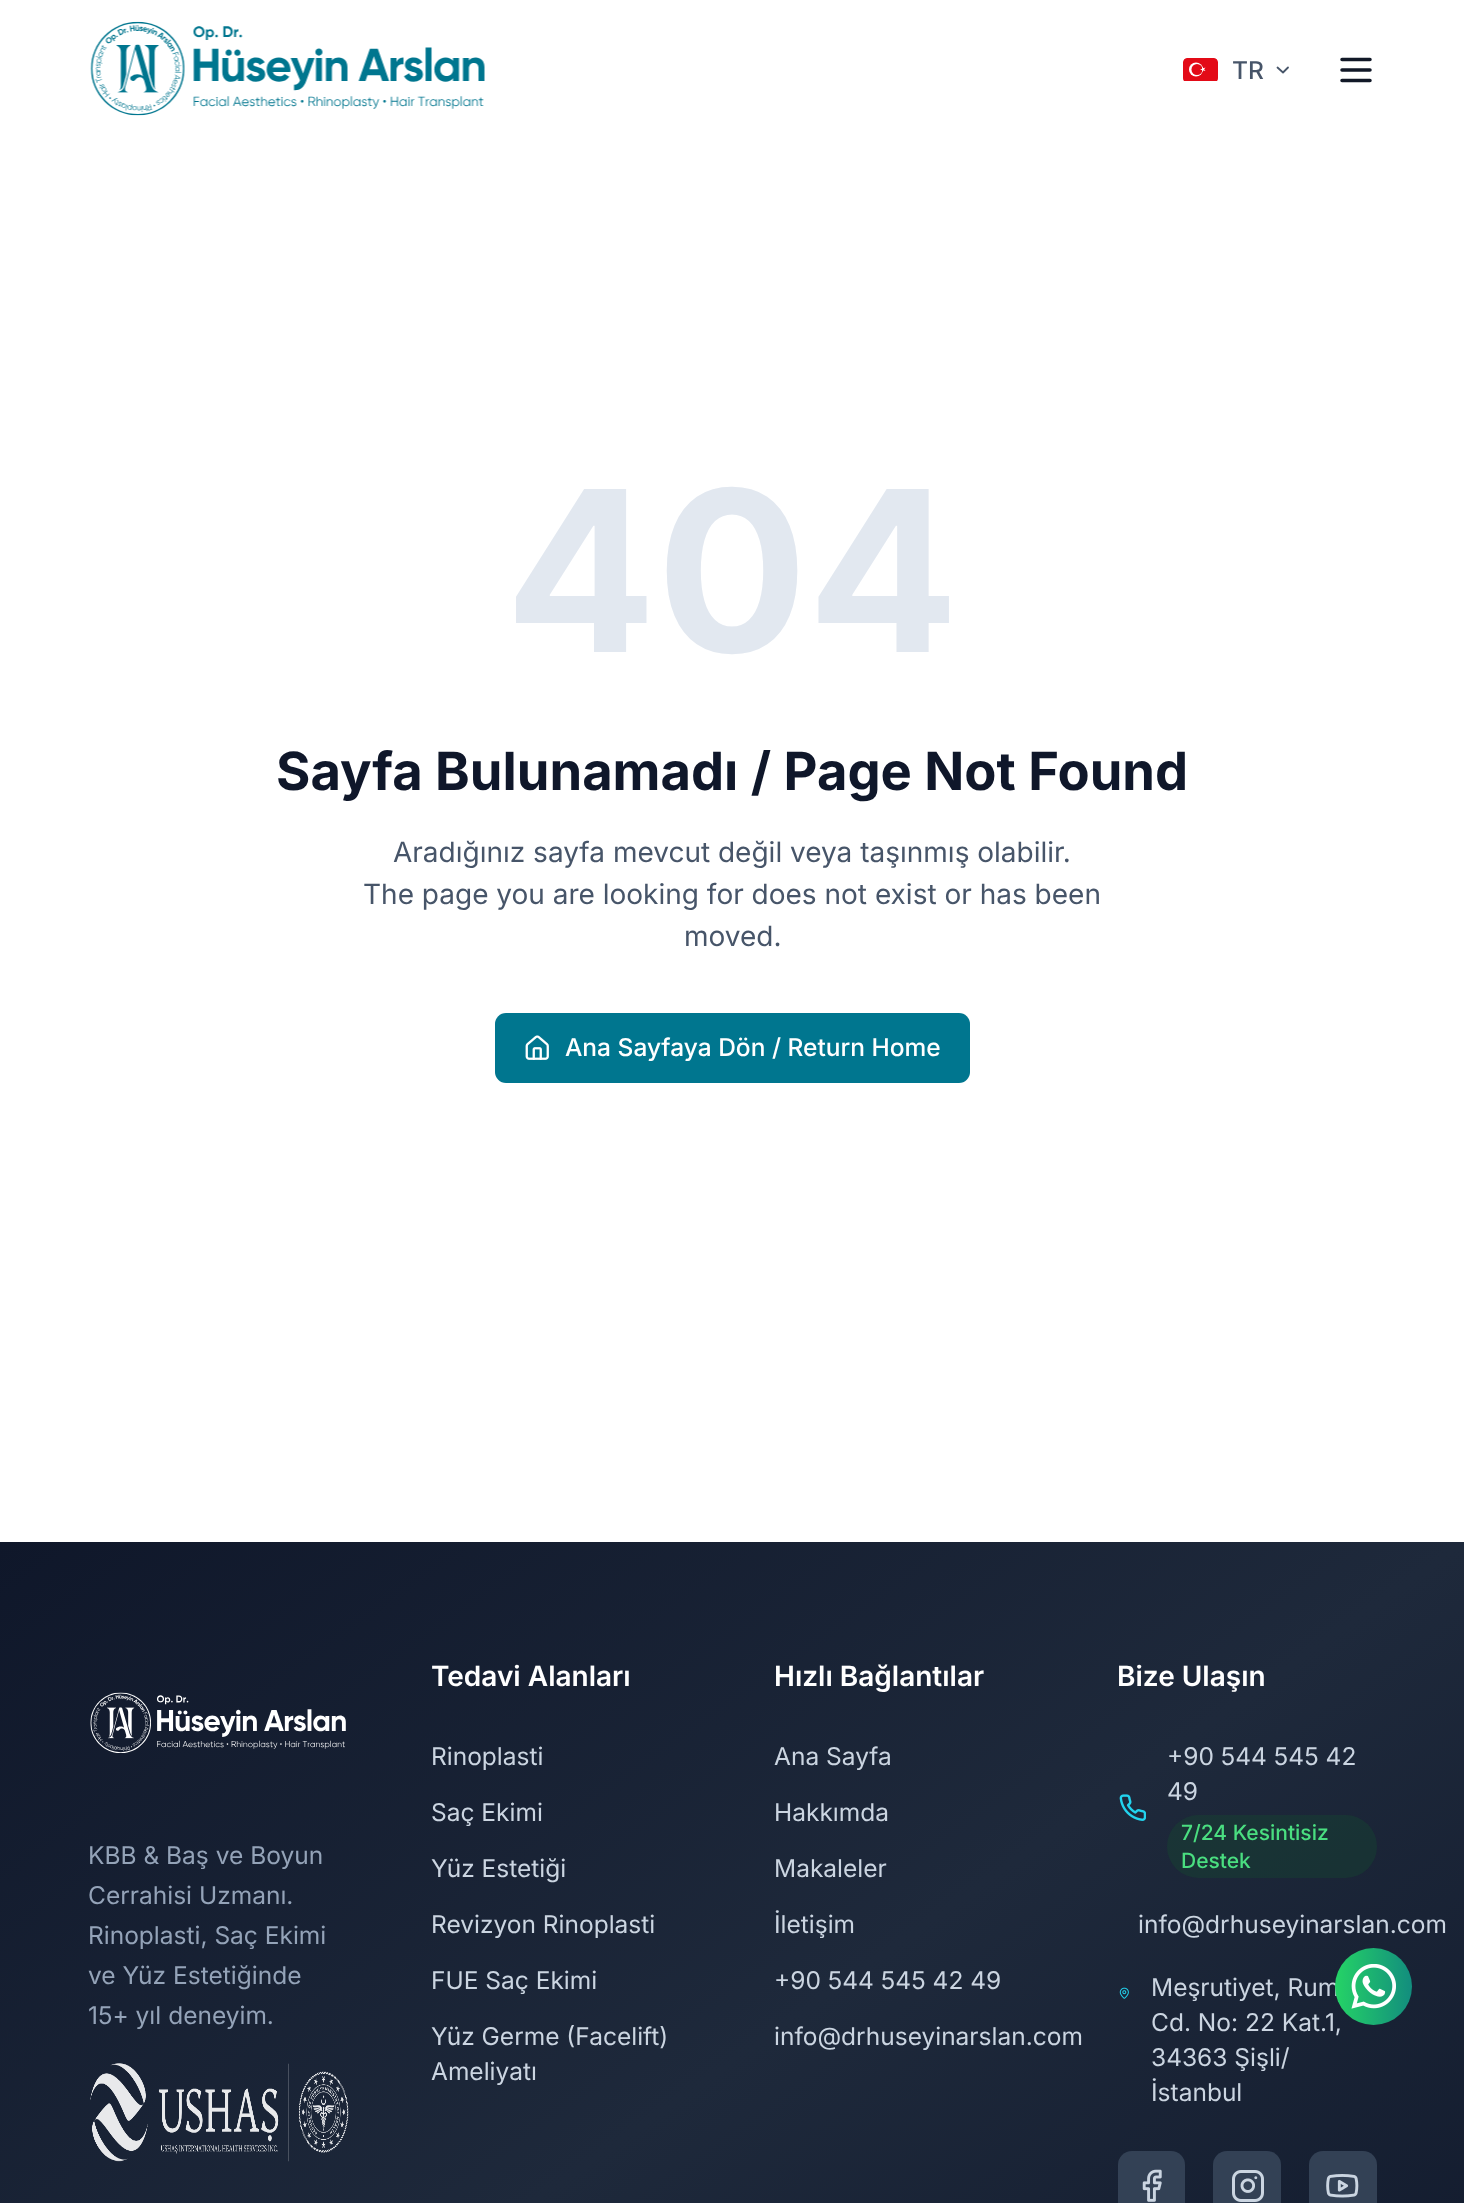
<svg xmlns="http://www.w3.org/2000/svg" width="1464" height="2203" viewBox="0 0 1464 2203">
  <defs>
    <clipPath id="clip1"><rect x="1183" y="58" width="35" height="24" rx="4"/></clipPath>
    <linearGradient id="g1" gradientUnits="userSpaceOnUse" x1="243" y1="1370" x2="1222" y2="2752"><stop offset="0" stop-color="#0f172a"/><stop offset="0.5" stop-color="#1e293b"/><stop offset="1" stop-color="#0f172a"/></linearGradient>
    <linearGradient id="g2" gradientUnits="userSpaceOnUse" x1="1335" y1="1986" x2="1413" y2="1986"><stop offset="0" stop-color="#25d366"/><stop offset="1" stop-color="#128c7e"/></linearGradient>
  </defs>
  <rect width="100%" height="100%" fill="#fff"/>
  <image x="90" y="21" width="395" height="95" href="img/1.png"/>
  <g clip-path="url(#clip1)">
    <path d="M1187 58H1214C1216 58 1218 60 1218 62V81H1183V62C1183 60 1185 58 1187 58Z" fill="#e30a17"/>
  </g>
  <circle cx="1196" cy="69.5" r="7" fill="#fff"/>
  <circle cx="1197" cy="69.5" r="5.5" fill="#e30a17"/>
  <path d="M1200 69.5L1205.5 71L1202 66.5V72L1205.5 67.5Z" fill="#fff"/>
  <path d="M1277.5 67.5L1283 72.5L1288 67.5" fill="none" stroke="#475569" stroke-width="1.8" stroke-linecap="round" stroke-linejoin="round"/>
  <path d="M1342 70H1370M1342 59.5H1370M1342 80.5H1370" fill="none" stroke="#111827" stroke-width="3.5" stroke-linecap="round" stroke-linejoin="round"/>
  <rect x="495" y="1013" width="475" height="70" rx="11" fill="#00768f"/>
  <image x="525" y="1035" width="24" height="25" href="img/2.png"/>
  <path d="M0 1542h1464v661H0z" fill="url(#g1)"/>
  <image x="90" y="1692" width="256" height="61" href="img/3.png"/>
  <image x="90" y="2063" width="259" height="99" href="img/4.png"/>
  <image x="1119" y="1794" width="27" height="27" href="img/5.png"/>
  <rect x="1167" y="1815" width="210" height="63" rx="31.5" fill="#14532d4d"/>
  <image x="1119" y="1987" width="10" height="12" href="img/6.png"/>
  <rect x="1118" y="2151" width="67" height="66" rx="14" fill="#334155"/>
  <image x="1142" y="2169" width="20" height="33" href="img/7.png"/>
  <rect x="1213" y="2151" width="68" height="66" rx="14" fill="#334155"/>
  <image x="1232" y="2170" width="32" height="32" href="img/8.png"/>
  <rect x="1309" y="2151" width="68" height="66" rx="14" fill="#334155"/>
  <image x="1326" y="2174" width="33" height="24" href="img/9.png"/>
  <text x="1232" y="79" font-family="Inter" font-size="24.5" font-weight="500" fill="#475569">TR</text>
  <text x="505" y="652" font-family="Inter" font-size="224" font-weight="bold" fill="#e2e8f0">404</text>
  <text x="276" y="790" font-family="Inter" font-size="52.5" font-weight="bold" fill="#0f172a">Sayfa Bulunamadı / Page Not Found</text>
  <g font-family="Inter" font-size="28" fill="#475569">
    <text x="393" y="862">Aradığınız sayfa mevcut değil veya taşınmış olabilir.</text>
    <text x="363" y="904">The page you are looking for does not exist or has been</text>
    <text x="684" y="946">moved.</text>
  </g>
  <text x="565" y="1056" font-family="Inter" font-size="24.5" font-weight="500" fill="#fff">Ana Sayfaya Dön / Return Home</text>
  <g font-family="Inter" font-size="24.5" fill="#94a3b8">
    <text x="88" y="1864">KBB &amp; Baş ve Boyun</text>
    <text x="88" y="1904">Cerrahisi Uzmanı.</text>
    <text x="88" y="1944">Rinoplasti, Saç Ekimi</text>
    <text x="88" y="1984">ve Yüz Estetiğinde</text>
    <text x="88" y="2024">15+ yıl deneyim.</text>
  </g>
  <text x="431" y="1686" font-family="Inter" font-size="28" font-weight="600" fill="#fff">Tedavi Alanları</text>
  <g font-family="Inter" font-size="24.5" fill="#cbd5e1">
    <text x="431" y="1765">Rinoplasti</text>
    <text x="431" y="1821">Saç Ekimi</text>
    <text x="431" y="1877">Yüz Estetiği</text>
    <text x="431" y="1933">Revizyon Rinoplasti</text>
    <text x="431" y="1989">FUE Saç Ekimi</text>
    <text x="431" y="2045">Yüz Germe (Facelift)</text>
    <text x="431" y="2080">Ameliyatı</text>
  </g>
  <text x="774" y="1686" font-family="Inter" font-size="28" font-weight="600" fill="#fff">Hızlı Bağlantılar</text>
  <g font-family="Inter" font-size="24.5" fill="#cbd5e1">
    <text x="774" y="1765">Ana Sayfa</text>
    <text x="774" y="1821">Hakkımda</text>
    <text x="774" y="1877">Makaleler</text>
    <text x="774" y="1933">İletişim</text>
    <text x="774" y="1989">+90 544 545 42 49</text>
    <text x="774" y="2045">info@drhuseyinarslan.com</text>
  </g>
  <text x="1117" y="1686" font-family="Inter" font-size="28" font-weight="600" fill="#fff">Bize Ulaşın</text>
  <g font-family="Inter" font-size="24.5" fill="#cbd5e1">
    <text x="1167" y="1765">+90 544 545 42</text>
    <text x="1167" y="1800">49</text>
  </g>
  <g font-family="Inter" font-size="21" font-weight="500" fill="#4ade80">
    <text x="1181" y="1840">7/24 Kesintisiz</text>
    <text x="1181" y="1868">Destek</text>
  </g>
  <g font-family="Inter" font-size="24.5" fill="#cbd5e1">
    <text x="1138" y="1933">info@drhuseyinarslan.com</text>
    <text x="1151" y="1996">Meşrutiyet, Rum</text>
    <text x="1151" y="2031">Cd. No: 22 Kat.1,</text>
    <text x="1151" y="2066">34363 Şişli/</text>
    <text x="1151" y="2101">İstanbul</text>
  </g>
  <circle cx="1373.5" cy="1986.5" r="38.5" fill="url(#g2)"/>
  <image x="1351" y="1964" width="45" height="45" href="img/10.png"/>
</svg>
